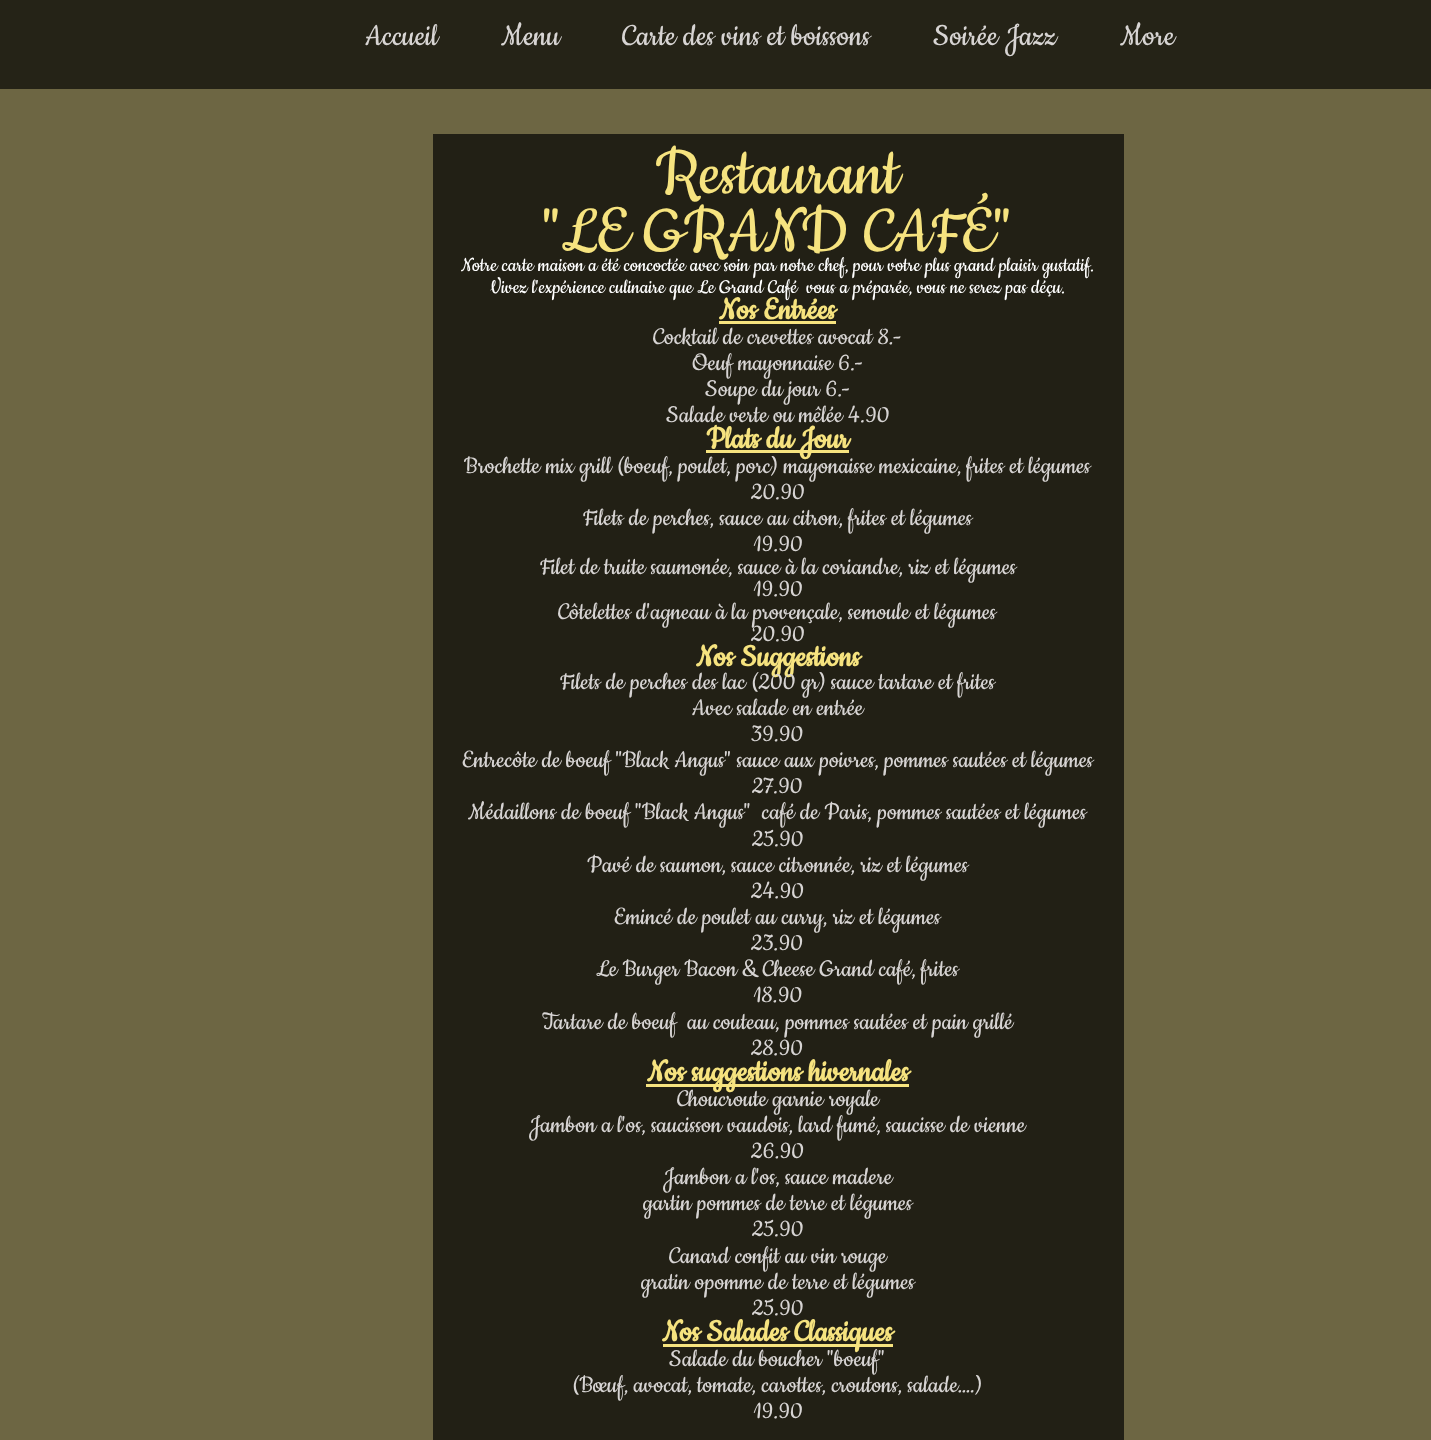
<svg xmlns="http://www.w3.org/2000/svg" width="1431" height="1440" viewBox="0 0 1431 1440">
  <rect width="100%" height="100%" fill="#6d6643"/>
  <path d="M0 0h1431v89H0z" fill="#252317"/>
  <path d="M433 134h691v1306H433z" fill="#222015"/>
  <path d="M719 321h117v3H719z" fill="#f6e37f"/>
  <path d="M706 450h143v3H706z" fill="#f6e37f"/>
  <path d="M646 1084h263v3H646z" fill="#f6e37f"/>
  <path d="M663 1344h230v3H663z" fill="#f6e37f"/>
  <g font-family="Cookie" font-size="35" fill="#d7d4d3">
    <text x="365" y="45">Accueil</text>
    <text x="501" y="45">Menu</text>
    <text x="622" y="45">Carte des vins et boissons</text>
    <text x="933" y="45">Soirée Jazz</text>
    <text x="1120" y="45">More</text>
  </g>
  <text x="656" y="193" font-family="Cookie" font-size="75" fill="#f6e37f">Restaurant</text>
  <text x="543" y="251" font-family="Cookie" font-size="73.75" fill="#f6e37f">"LE GRAND CAFÉ"</text>
  <g font-family="Cookie" font-size="22.5" fill="#fff">
    <text x="461" y="271">Notre carte maison a été concoctée avec soin par notre chef, pour votre plus grand plaisir gustatif.</text>
    <text x="490" y="293" xml:space="preserve">Vivez l'expérience culinaire que Le Grand Café  vous a préparée, vous ne serez pas déçu.</text>
  </g>
  <text x="719" y="319" font-family="Cookie" font-size="35" font-weight="bold" fill="#f6e37f">Nos Entrées</text>
  <g font-family="Cookie" font-size="27.5" fill="#d7d4d3">
    <text x="653" y="344">Cocktail de crevettes avocat 8.-</text>
    <text x="692" y="370">Oeuf mayonnaise 6.-</text>
    <text x="705" y="396">Soupe du jour 6.-</text>
    <text x="666" y="422">Salade verte ou mêlée 4.90</text>
  </g>
  <text x="706" y="448" font-family="Cookie" font-size="35" font-weight="bold" fill="#f6e37f">Plats du Jour</text>
  <g font-family="Cookie" font-size="27.5" fill="#d7d4d3">
    <text x="464" y="473">Brochette mix grill (boeuf, poulet, porc) mayonaisse mexicaine, frites et légumes</text>
    <text x="751" y="499">20.90</text>
    <text x="583" y="525">Filets de perches, sauce au citron, frites et légumes</text>
    <text x="753" y="551">19.90</text>
    <text x="540" y="574">Filet de truite saumonée, sauce à la coriandre, riz et légumes</text>
    <text x="753" y="596">19.90</text>
    <text x="558" y="619">Côtelettes d'agneau à la provençale, semoule et légumes</text>
    <text x="751" y="641">20.90</text>
  </g>
  <text x="696" y="666" font-family="Cookie" font-size="35" font-weight="bold" fill="#f6e37f">Nos Suggestions</text>
  <g font-family="Cookie" font-size="27.5" fill="#d7d4d3">
    <text x="560" y="689">Filets de perches des lac (200 gr) sauce tartare et frites</text>
    <text x="692" y="715">Avec salade en entrée</text>
    <text x="751" y="741">39.90</text>
    <text x="462" y="767">Entrecôte de boeuf "Black Angus" sauce aux poivres, pommes sautées et légumes</text>
    <text x="752" y="793">27.90</text>
    <text x="468" y="819" xml:space="preserve">Médaillons de boeuf "Black Angus"  café de Paris, pommes sautées et légumes</text>
    <text x="752" y="846">25.90</text>
    <text x="587" y="872">Pavé de saumon, sauce citronnée, riz et légumes</text>
    <text x="751" y="898">24.90</text>
    <text x="614" y="924">Emincé de poulet au curry, riz et légumes</text>
    <text x="751" y="950">23.90</text>
    <text x="596" y="976">Le Burger Bacon &amp; Cheese Grand café, frites</text>
    <text x="753" y="1002">18.90</text>
    <text x="542" y="1029" xml:space="preserve">Tartare de boeuf  au couteau, pommes sautées et pain grillé</text>
    <text x="751" y="1055">28.90</text>
  </g>
  <text x="647" y="1081" font-family="Cookie" font-size="35" font-weight="bold" fill="#f6e37f">Nos suggestions hivernales</text>
  <g font-family="Cookie" font-size="27.5" fill="#d7d4d3">
    <text x="677" y="1106">Choucroute garnie royale</text>
    <text x="529" y="1132">Jambon a l'os, saucisson vaudois, lard fumé, saucisse de vienne</text>
    <text x="751" y="1158">26.90</text>
    <text x="663" y="1184">Jambon a l'os, sauce madere</text>
    <text x="643" y="1210">gartin pommes de terre et légumes</text>
    <text x="752" y="1236">25.90</text>
    <text x="669" y="1263">Canard confit au vin rouge</text>
    <text x="641" y="1289">gratin opomme de terre et légumes</text>
    <text x="752" y="1315">25.90</text>
  </g>
  <text x="662" y="1341" font-family="Cookie" font-size="35" font-weight="bold" fill="#f6e37f">Nos Salades Classiques</text>
  <g font-family="Cookie" font-size="27.5" fill="#d7d4d3">
    <text x="669" y="1366">Salade du boucher "boeuf"</text>
    <text x="572" y="1392">(Bœuf, avocat, tomate, carottes, croutons, salade….)</text>
    <text x="753" y="1418">19.90</text>
  </g>
</svg>
